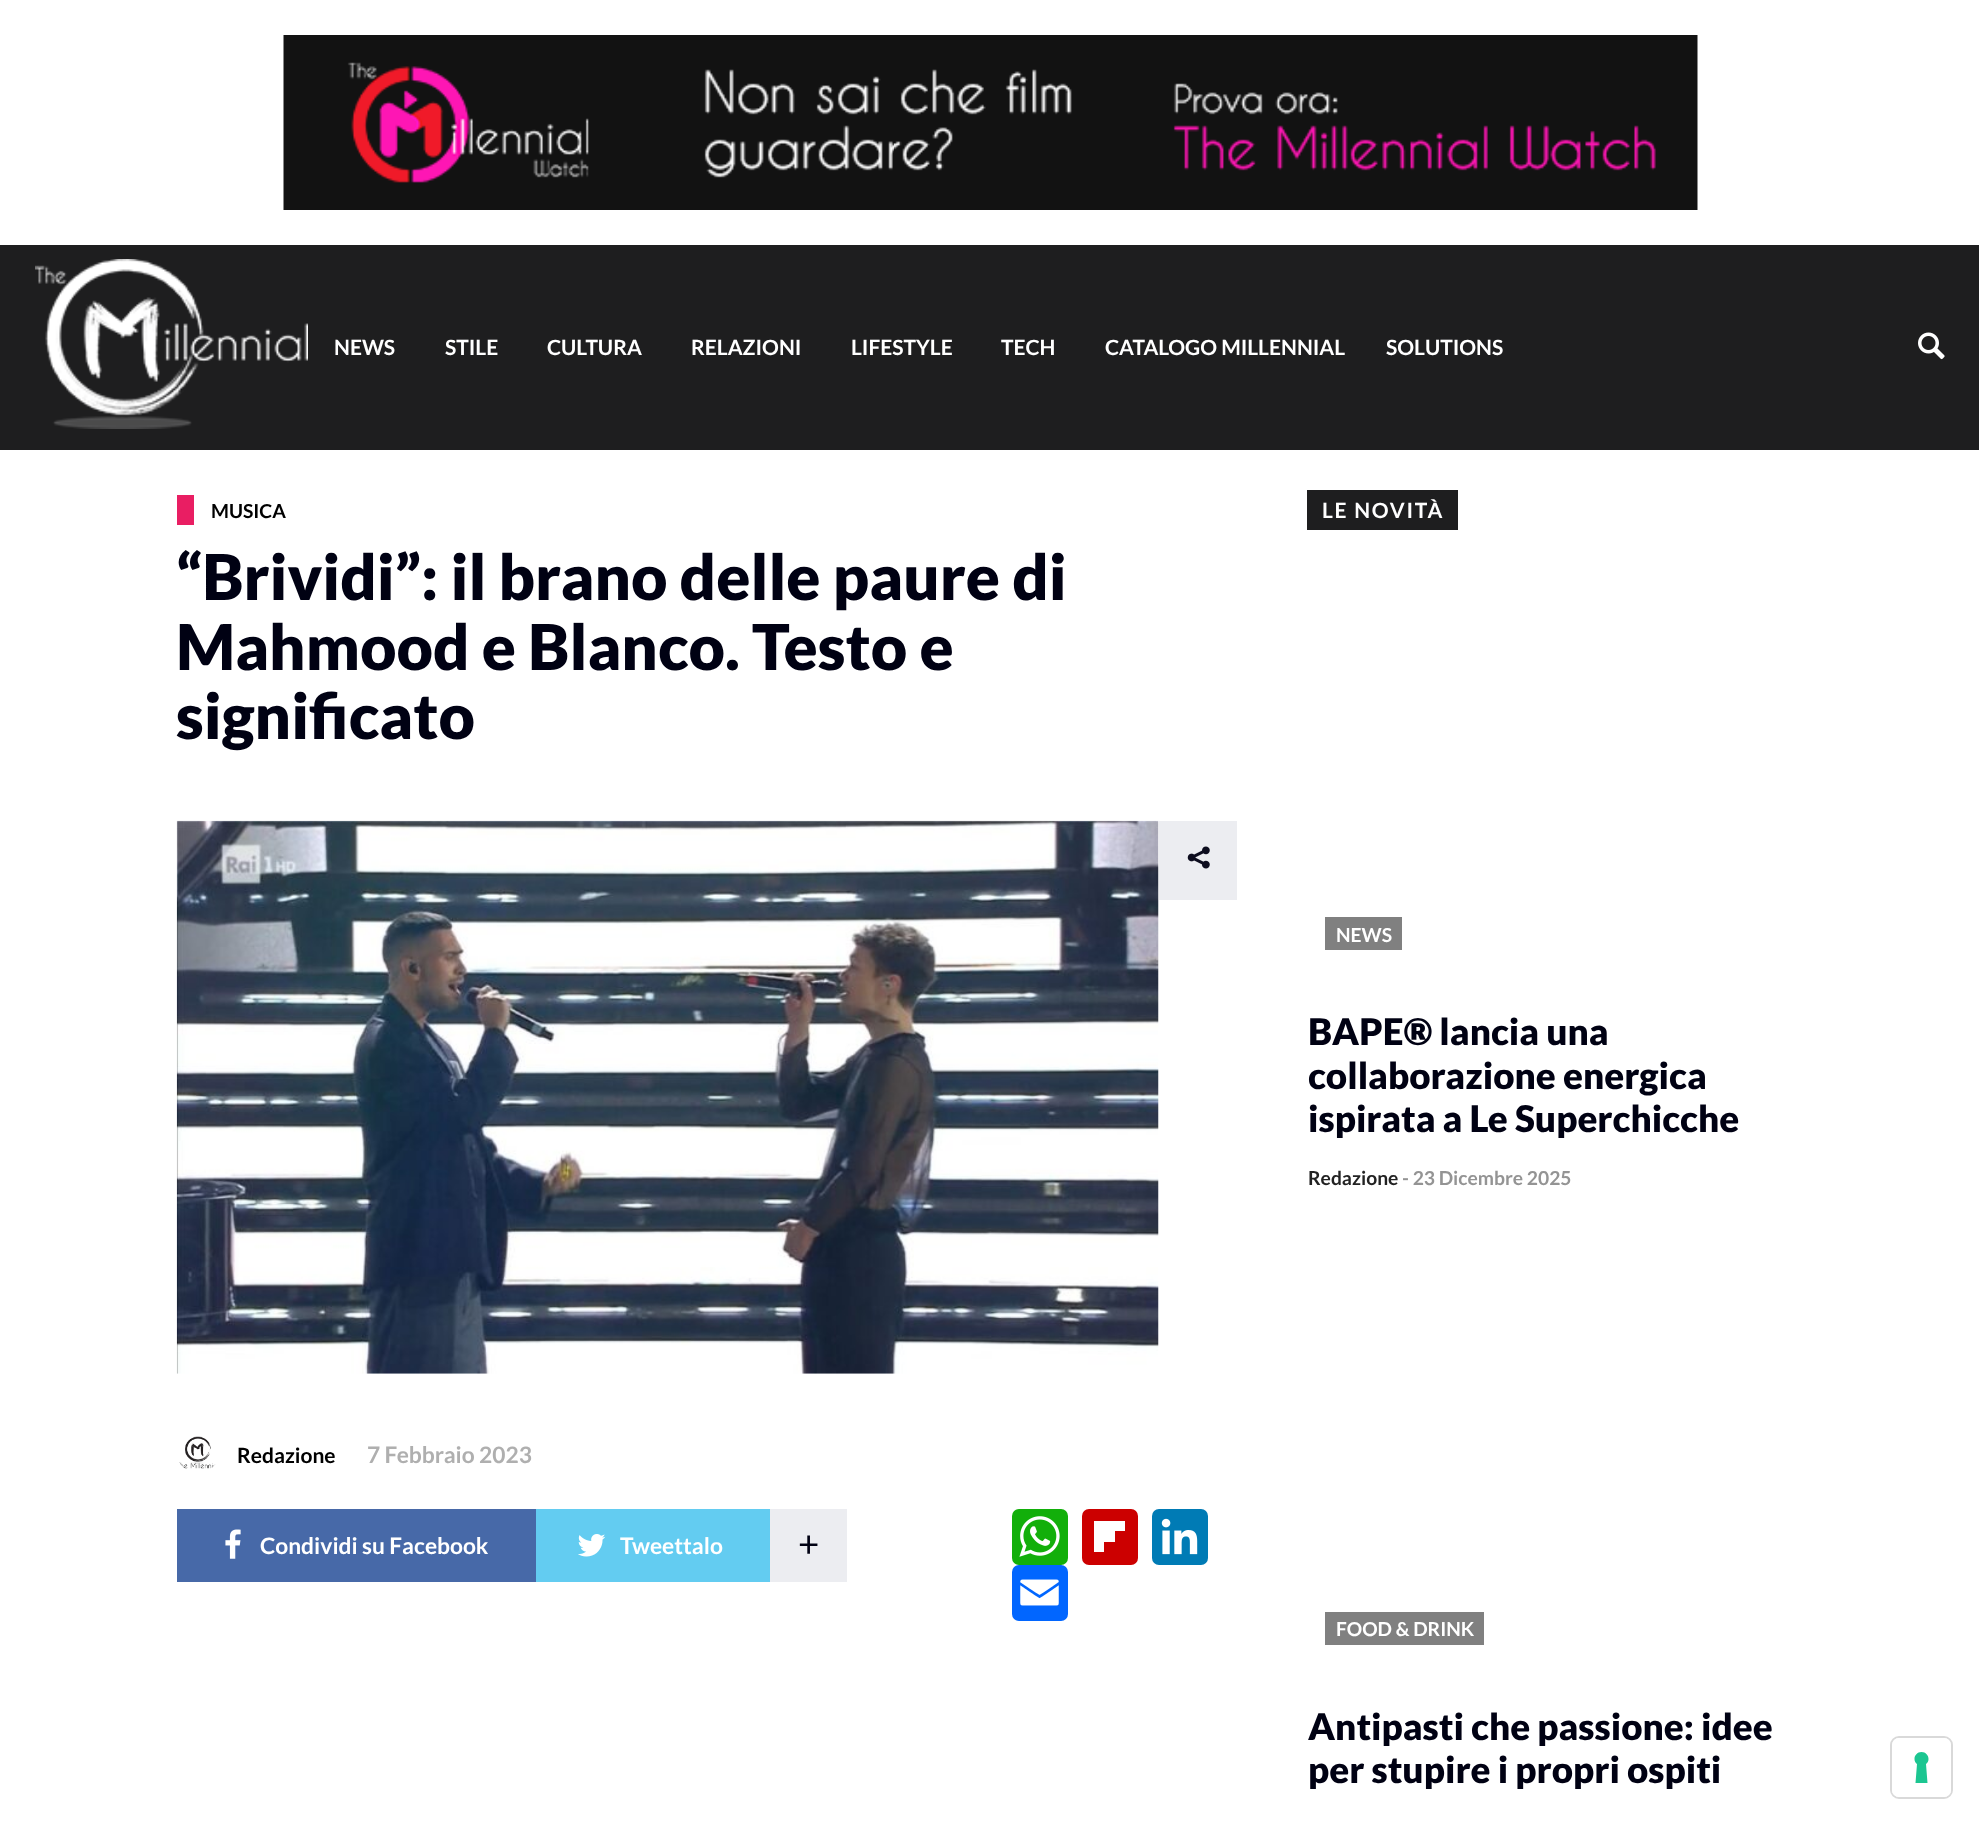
<svg xmlns="http://www.w3.org/2000/svg" width="1979" height="1824" viewBox="0 0 1979 1824">
  <rect width="100%" height="100%" fill="#fff"/>
  <image x="283" y="35" width="1415" height="175" href="img/1.png"/>
  <path d="M0 245h1979v205H0z" fill="#1e1e1f"/>
  <image x="35" y="259" width="273" height="170" href="img/2.png"/>
  <image x="1918" y="332" width="27" height="28" href="img/3.png"/>
  <path d="M177 495h17v30H177z" fill="#e91e63"/>
  <image x="176" y="820" width="983" height="554" href="img/4.png"/>
  <path d="M1159 821h78v79H1159z" fill="#ecedf1"/>
  <image x="1187" y="846" width="23" height="23" href="img/5.png"/>
  <image x="179" y="1436" width="37" height="33" href="img/6.png"/>
  <path d="M177 1509h359v73H177z" fill="#4769a8"/>
  <image x="225" y="1529" width="16" height="30" href="img/7.png"/>
  <path d="M536 1509h234v73H536z" fill="#63ccf1"/>
  <image x="578" y="1534" width="28" height="23" href="img/8.png"/>
  <path d="M770 1509h77v73H770z" fill="#ecedf1"/>
  <rect x="1012" y="1509" width="56" height="56" rx="7" fill="#12af0a"/>
  <image x="1019" y="1516" width="41" height="41" href="img/9.png"/>
  <rect x="1082" y="1509" width="56" height="56" rx="7" fill="#c00"/>
  <path d="M1104 1531h11v11H1104z" fill="#fff"/>
  <path d="M1104 1521h21v10H1104z" fill="#fff"/>
  <path d="M1094 1521h10v31H1094z" fill="#fff"/>
  <rect x="1152" y="1509" width="56" height="56" rx="7" fill="#007bb5"/>
  <image x="1161" y="1518" width="37" height="37" href="img/10.png"/>
  <rect x="1012" y="1565" width="56" height="56" rx="7" fill="#0166ff"/>
  <image x="1020" y="1579" width="39" height="27" href="img/11.png"/>
  <path d="M1307 490h151v40H1307z" fill="#1e1e1f"/>
  <path d="M1325 917h77v33H1325z" fill="#808080"/>
  <path d="M1325 1612h159v33H1325z" fill="#808080"/>
  <rect x="1891" y="1737" width="61" height="61" rx="8" fill="none" stroke="#d9d9d9" stroke-width="2"/>
  <rect x="1892" y="1738" width="59" height="59" rx="7" fill="#fff"/>
  <path d="M1921.5 1752C1928 1752 1931 1760 1926 1764L1927.5 1783H1915.5L1917 1764C1912 1760 1915 1752 1921.5 1752Z" fill="#1cc691" fill-rule="evenodd"/>
  <g font-family="Lato" font-size="21" font-weight="bold" fill="#fff">
    <text x="334" y="355">NEWS</text>
    <text x="445" y="355">STILE</text>
    <text x="547" y="355">CULTURA</text>
    <text x="691" y="355">RELAZIONI</text>
    <text x="851" y="355">LIFESTYLE</text>
    <text x="1001" y="355">TECH</text>
    <text x="1105" y="355">CATALOGO MILLENNIAL</text>
    <text x="1386" y="355">SOLUTIONS</text>
  </g>
  <text x="211" y="518" font-family="Lato" font-size="19.25" font-weight="bold" fill="#000">MUSICA</text>
  <g font-family="Lato" font-size="63" font-weight="900" fill="#000113">
    <text x="176" y="600">“Brividi”: il brano delle paure di</text>
    <text x="176" y="670">Mahmood e Blanco. Testo e</text>
    <text x="176" y="739">significato</text>
  </g>
  <text x="237" y="1463" font-family="Lato" font-size="21" font-weight="bold" fill="#000">Redazione</text>
  <text x="367" y="1463" font-family="Lato" font-size="22.75" font-weight="bold" fill="#afafaf">7 Febbraio 2023</text>
  <g font-family="Lato" font-size="22.75" font-weight="bold" fill="#fff">
    <text x="260" y="1554">Condividi su Facebook</text>
    <text x="620" y="1554">Tweettalo</text>
  </g>
  <text x="798" y="1557" font-family="Lato" font-size="36.75" fill="#000113">+</text>
  <text x="1322" y="518" font-family="Lato" font-size="21" font-weight="bold" letter-spacing="1.75" fill="#fff">LE NOVITÀ</text>
  <text x="1336" y="942" font-family="Lato" font-size="19.25" font-weight="bold" fill="#fff">NEWS</text>
  <g font-family="Lato" font-size="36.75" font-weight="900" fill="#000113">
    <text x="1308" y="1045">BAPE® lancia una</text>
    <text x="1308" y="1089">collaborazione energica</text>
    <text x="1308" y="1132">ispirata a Le Superchicche</text>
  </g>
  <text x="1308" y="1185" font-family="Lato" font-size="19.25" font-weight="bold" fill="#222">Redazione</text>
  <text x="1402" y="1185" font-family="Lato" font-size="19.25" font-weight="bold" fill="#949494">- 23 Dicembre 2025</text>
  <text x="1336" y="1636" font-family="Lato" font-size="19.25" font-weight="bold" fill="#fff">FOOD &amp; DRINK</text>
  <g font-family="Lato" font-size="36.75" font-weight="900" fill="#000113">
    <text x="1308" y="1740">Antipasti che passione: idee</text>
    <text x="1308" y="1783">per stupire i propri ospiti</text>
  </g>
</svg>
